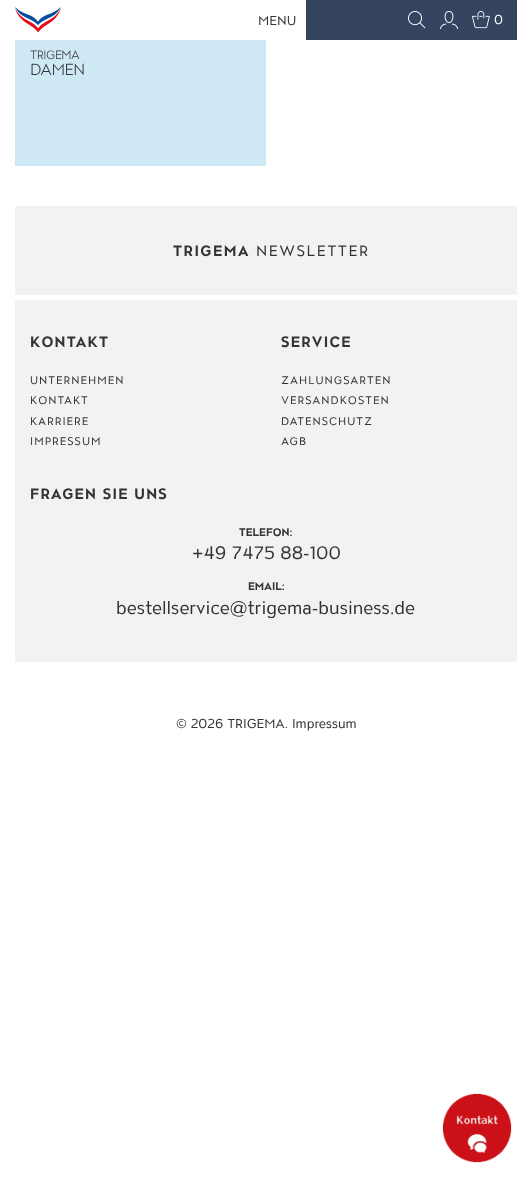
<svg xmlns="http://www.w3.org/2000/svg" width="532" height="1178" viewBox="0 0 532 1178">
  <rect width="100%" height="100%" fill="#fff"/>
  <image x="15" y="7" width="46" height="26" href="img/1.png"/>
  <path d="M306 0h211v40H306z" fill="#35445f"/>
  <image x="408" y="11" width="18" height="18" href="img/2.png"/>
  <image x="440" y="11" width="18" height="18" href="img/3.png"/>
  <image x="472" y="11" width="18" height="18" href="img/4.png"/>
  <path d="M15 40h251v126H15z" fill="#cee9f5"/>
  <path d="M15 206h502v89H15z" fill="#f2f2f2"/>
  <path d="M15 300h502v362H15z" fill="#f2f2f2"/>
  <image x="442" y="1093" width="70" height="70" href="img/5.png"/>
  <text x="258" y="25" font-family="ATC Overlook" font-size="13" fill="#333">MENU</text>
  <text x="494" y="24" font-family="ATC Overlook" font-size="13" fill="#fff">0</text>
  <text x="30" y="59" font-family="ATC Overlook" font-size="12" font-weight="300" letter-spacing="-0.5" fill="#333">TRIGEMA</text>
  <text x="30" y="75" font-family="ATC Overlook" font-size="16" font-weight="300" letter-spacing="-0.5" fill="#333">DAMEN</text>
  <text x="173" y="256" font-family="ATC Overlook" font-size="15" font-weight="bold" letter-spacing="1.5" fill="#333">TRIGEMA</text>
  <text x="256" y="256" font-family="ATC Overlook" font-size="15" letter-spacing="1.5" fill="#333">NEWSLETTER</text>
  <text x="30" y="347" font-family="ATC Overlook" font-size="15" font-weight="bold" letter-spacing="1.25" fill="#333">KONTAKT</text>
  <g font-family="ATC Overlook" font-size="11" letter-spacing="1" fill="#333">
    <text x="30" y="384">UNTERNEHMEN</text>
    <text x="30" y="404">KONTAKT</text>
    <text x="30" y="425">KARRIERE</text>
    <text x="30" y="445">IMPRESSUM</text>
  </g>
  <text x="281" y="347" font-family="ATC Overlook" font-size="15" font-weight="bold" letter-spacing="1.25" fill="#333">SERVICE</text>
  <g font-family="ATC Overlook" font-size="11" letter-spacing="1" fill="#333">
    <text x="281" y="384">ZAHLUNGSARTEN</text>
    <text x="281" y="404">VERSANDKOSTEN</text>
    <text x="281" y="425">DATENSCHUTZ</text>
    <text x="281" y="445">AGB</text>
  </g>
  <text x="30" y="499" font-family="ATC Overlook" font-size="15" font-weight="bold" letter-spacing="1.25" fill="#333">FRAGEN SIE UNS</text>
  <text x="239" y="536" font-family="ATC Overlook" font-size="11" font-weight="bold" fill="#333">TELEFON:</text>
  <text x="192" y="559" font-family="ATC Overlook" font-size="18" fill="#333">+49 7475 88-100</text>
  <text x="248" y="590" font-family="ATC Overlook" font-size="11" font-weight="bold" fill="#333">EMAIL:</text>
  <text x="116" y="614" font-family="ATC Overlook" font-size="18" fill="#333">bestellservice@trigema-business.de</text>
  <text x="176" y="728" font-family="ATC Overlook" font-size="13" fill="#333">© 2026 TRIGEMA. Impressum</text>
</svg>
